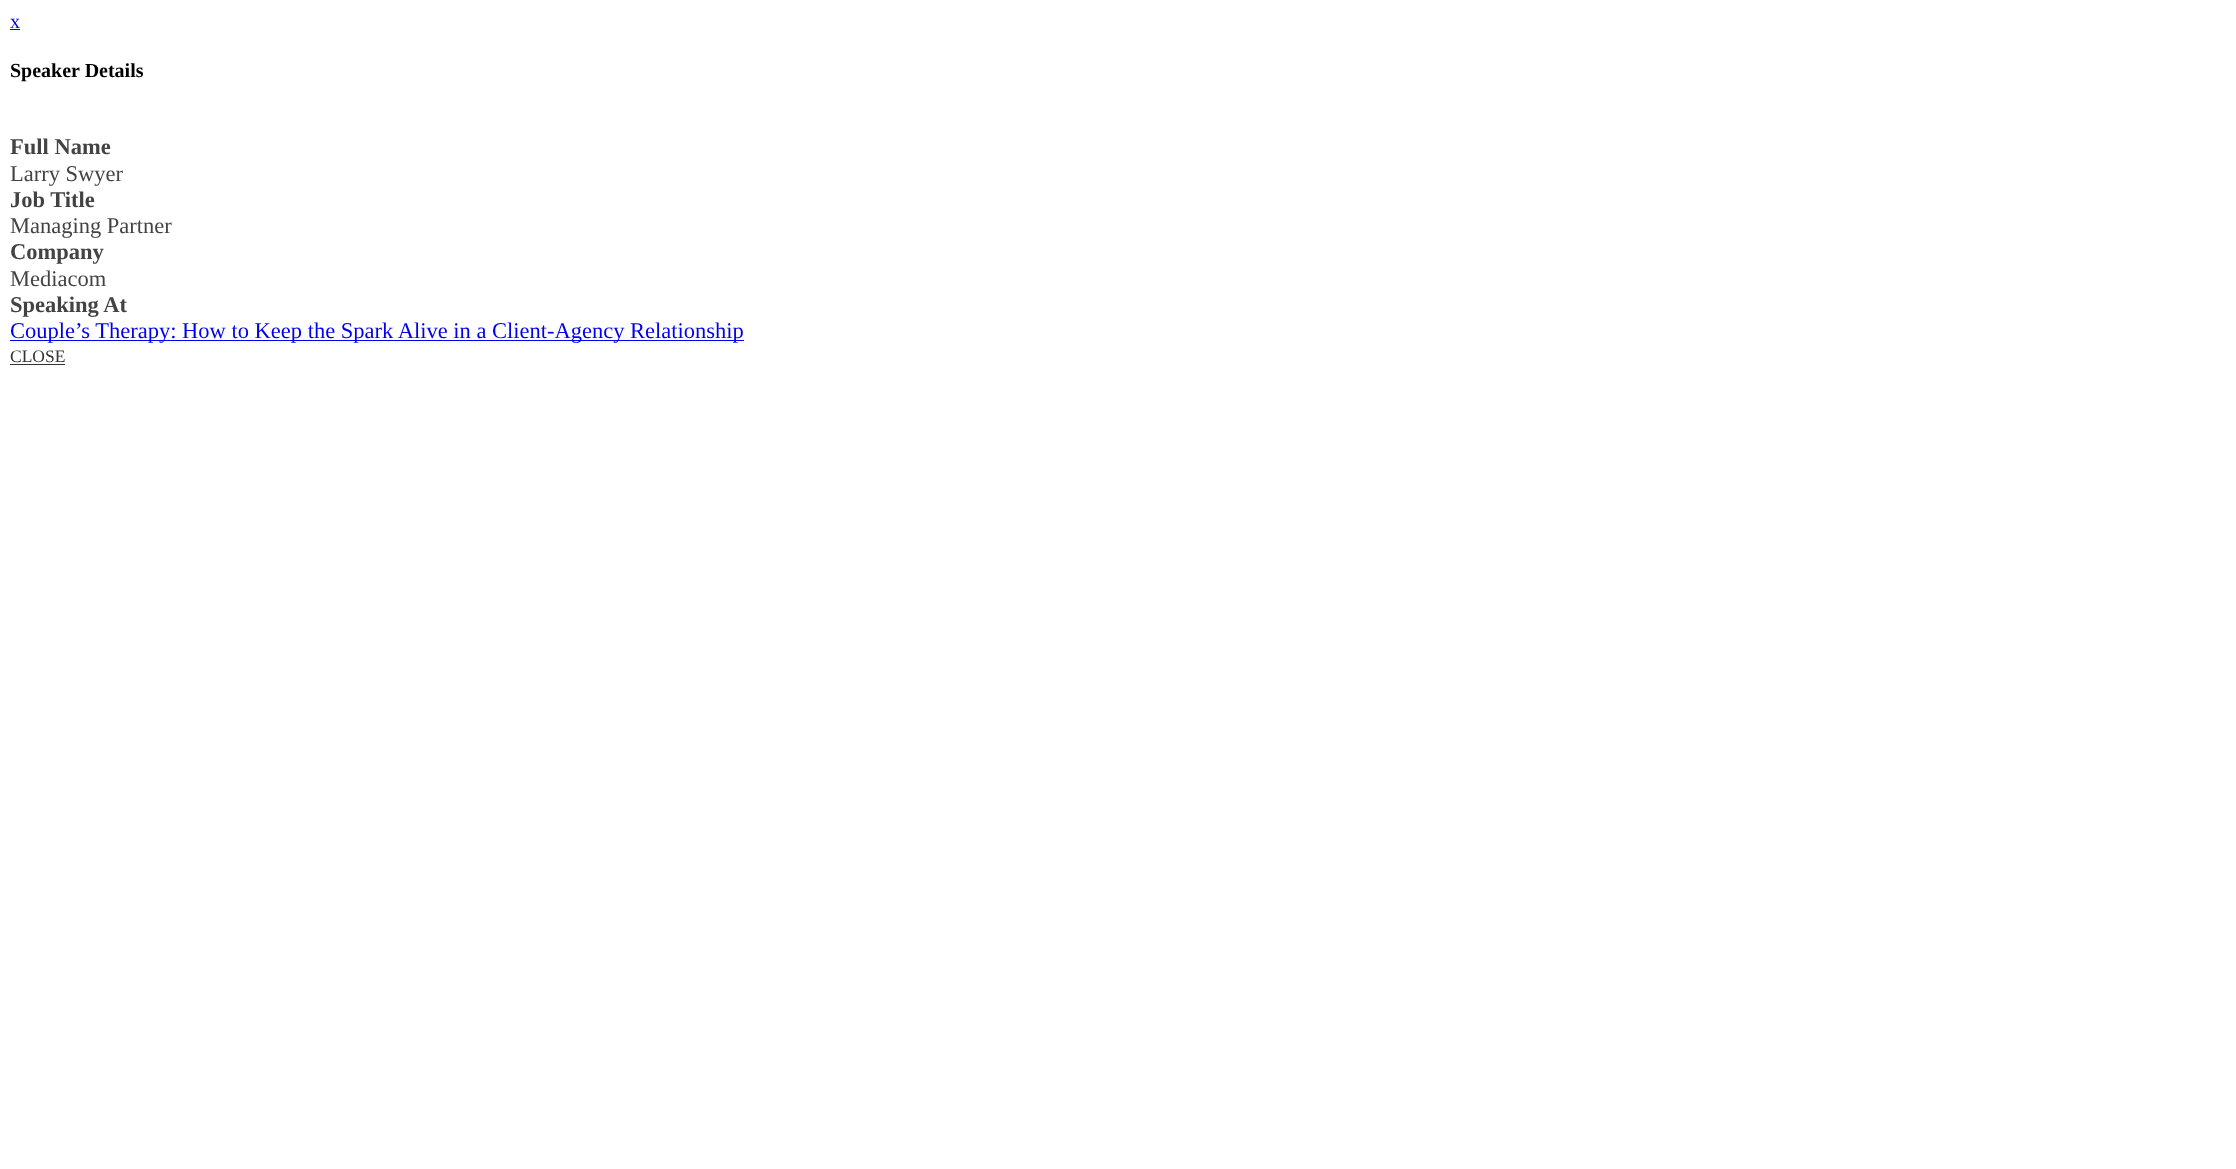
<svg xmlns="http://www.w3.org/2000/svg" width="2236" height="1169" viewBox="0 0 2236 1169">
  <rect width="100%" height="100%" fill="#fff"/>
  <path d="M10 29h10v1H10z" fill="#00e"/>
  <path d="M10 340h734v1H10z" fill="#00e"/>
  <path d="M10 364h55v1H10z" fill="#333"/>
  <text x="10" y="28" font-family="Liberation Serif" font-size="20" fill="#00e">x</text>
  <text x="10" y="77" font-family="Liberation Serif" font-size="20" font-weight="bold" fill="#000">Speaker Details</text>
  <text x="10" y="154" font-family="Liberation Serif" font-size="22.5" font-weight="bold" fill="#434343">Full Name</text>
  <text x="10" y="181" font-family="Liberation Serif" font-size="22.5" fill="#434343">Larry Swyer</text>
  <text x="10" y="207" font-family="Liberation Serif" font-size="22.5" font-weight="bold" fill="#434343">Job Title</text>
  <text x="10" y="233" font-family="Liberation Serif" font-size="22.5" fill="#434343">Managing Partner</text>
  <text x="10" y="259" font-family="Liberation Serif" font-size="22.5" font-weight="bold" fill="#434343">Company</text>
  <text x="10" y="286" font-family="Liberation Serif" font-size="22.5" fill="#434343">Mediacom</text>
  <text x="10" y="312" font-family="Liberation Serif" font-size="22.5" font-weight="bold" fill="#434343">Speaking At</text>
  <text x="10" y="338" font-family="Liberation Serif" font-size="22.5" fill="#00e">Couple’s Therapy: How to Keep the Spark Alive in a Client-Agency Relationship</text>
  <text x="10" y="362" font-family="Liberation Serif" font-size="17.5" fill="#333">CLOSE</text>
</svg>
